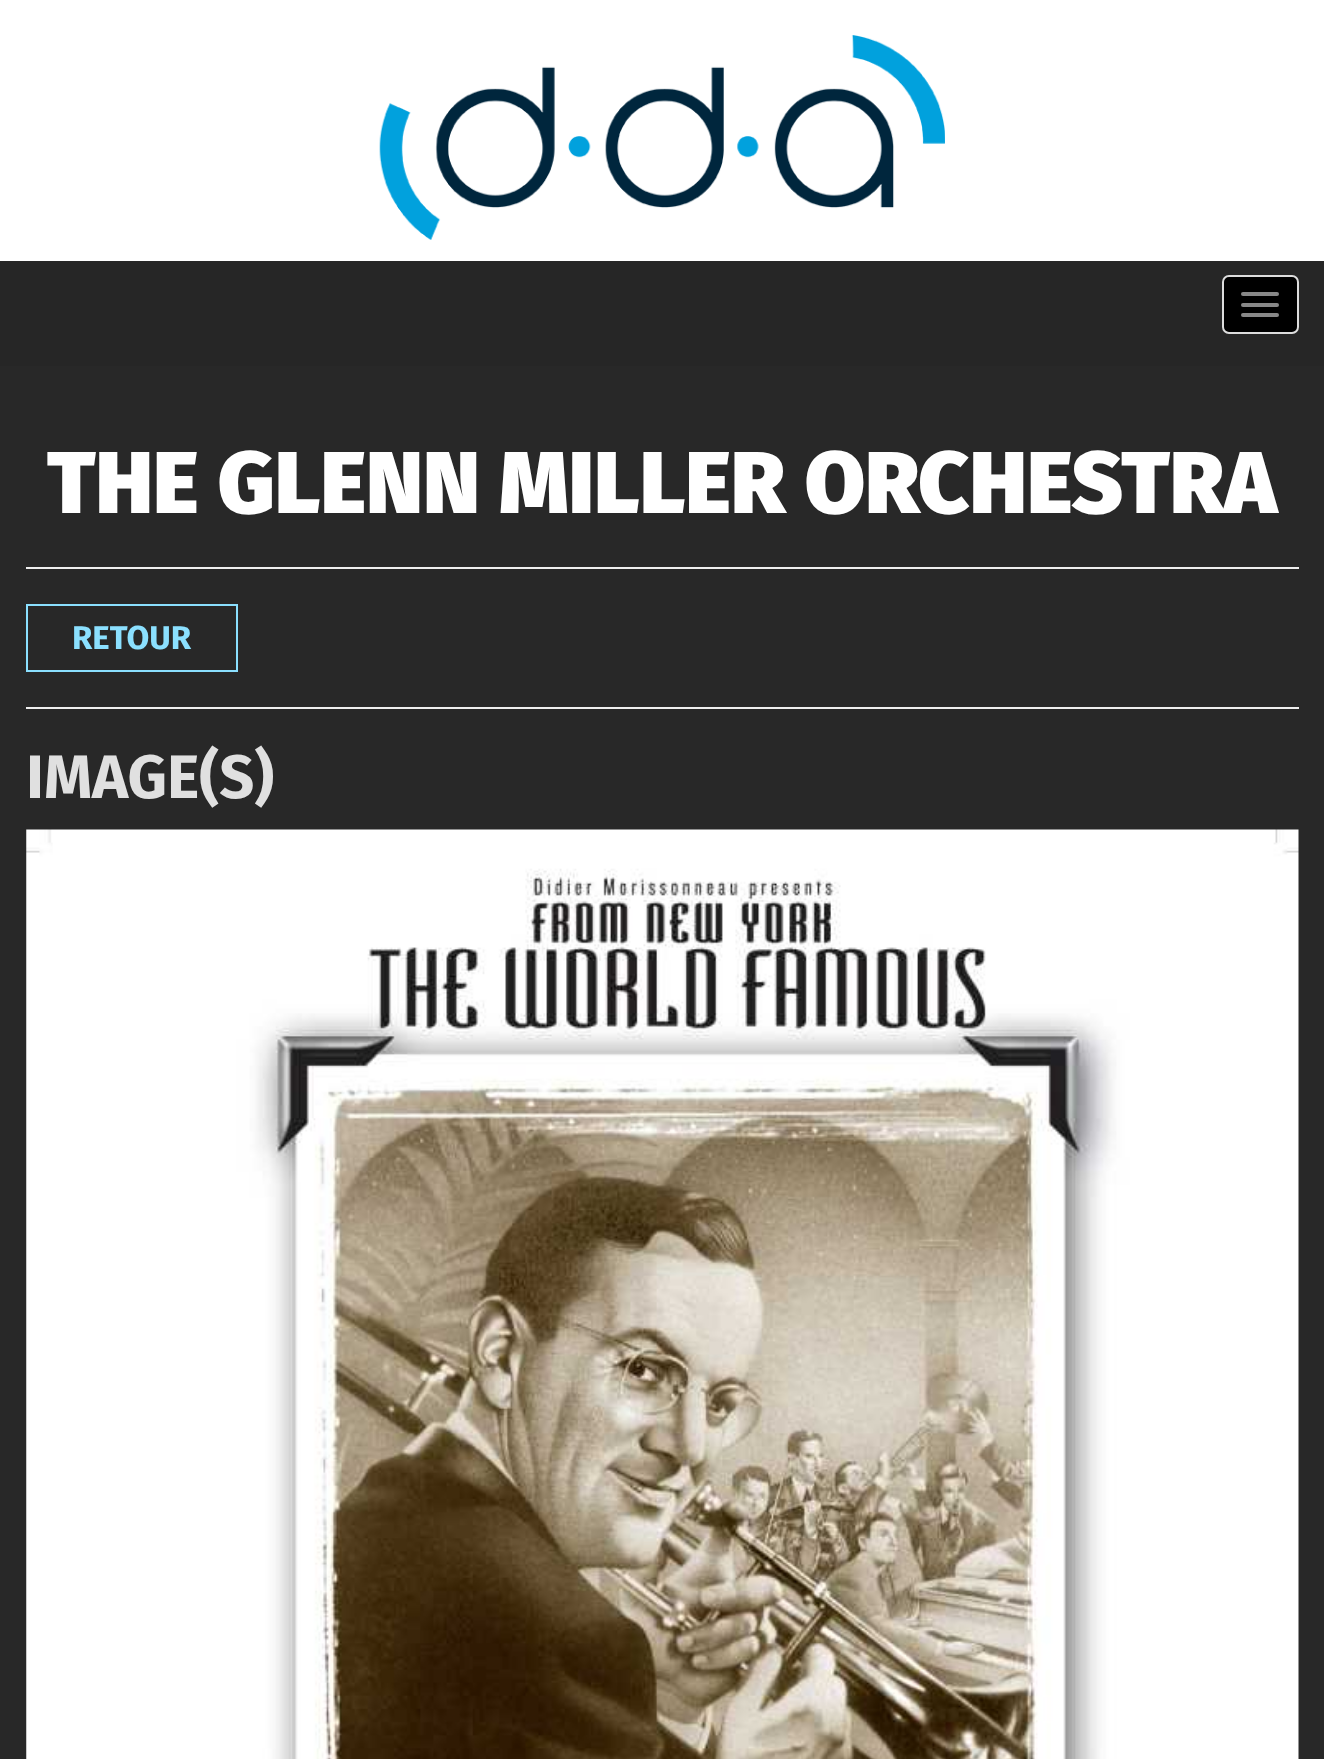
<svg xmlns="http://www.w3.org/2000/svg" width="1324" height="1759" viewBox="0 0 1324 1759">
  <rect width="100%" height="100%" fill="#fff"/>
  <image x="379" y="35" width="566" height="205" href="img/1.png"/>
  <path d="M0 261h1324v105H0z" fill="#262626"/>
  <rect x="1223" y="276" width="75" height="57" rx="6" fill="#000" stroke="#ddd" stroke-width="2"/>
  <rect x="1241" y="292" width="38" height="4" rx="2" fill="#888"/>
  <rect x="1241" y="303" width="38" height="4" rx="2" fill="#888"/>
  <rect x="1241" y="313" width="38" height="4" rx="2" fill="#888"/>
  <path d="M0 366h1324v1393H0z" fill="#282828"/>
  <path d="M26 567h1273v2H26z" fill="#eee"/>
  <path d="M27 605h210v66H27z" fill="none" stroke="#8be0ff" stroke-width="2"/>
  <path d="M26 707h1273v2H26z" fill="#eee"/>
  <image x="26" y="829" width="1273" height="930" href="img/2.png"/>
  <text x="47" y="513" font-family="Fira Sans" font-size="87.5" font-weight="900" fill="#fff">THE GLENN MILLER ORCHESTRA</text>
  <text x="72" y="649" font-family="Fira Sans" font-size="33" font-weight="bold" fill="#8be0ff">RETOUR</text>
  <text x="26" y="798" font-family="Fira Sans" font-size="61.25" font-weight="bold" fill="#e0e0e0">IMAGE(S)</text>
</svg>
